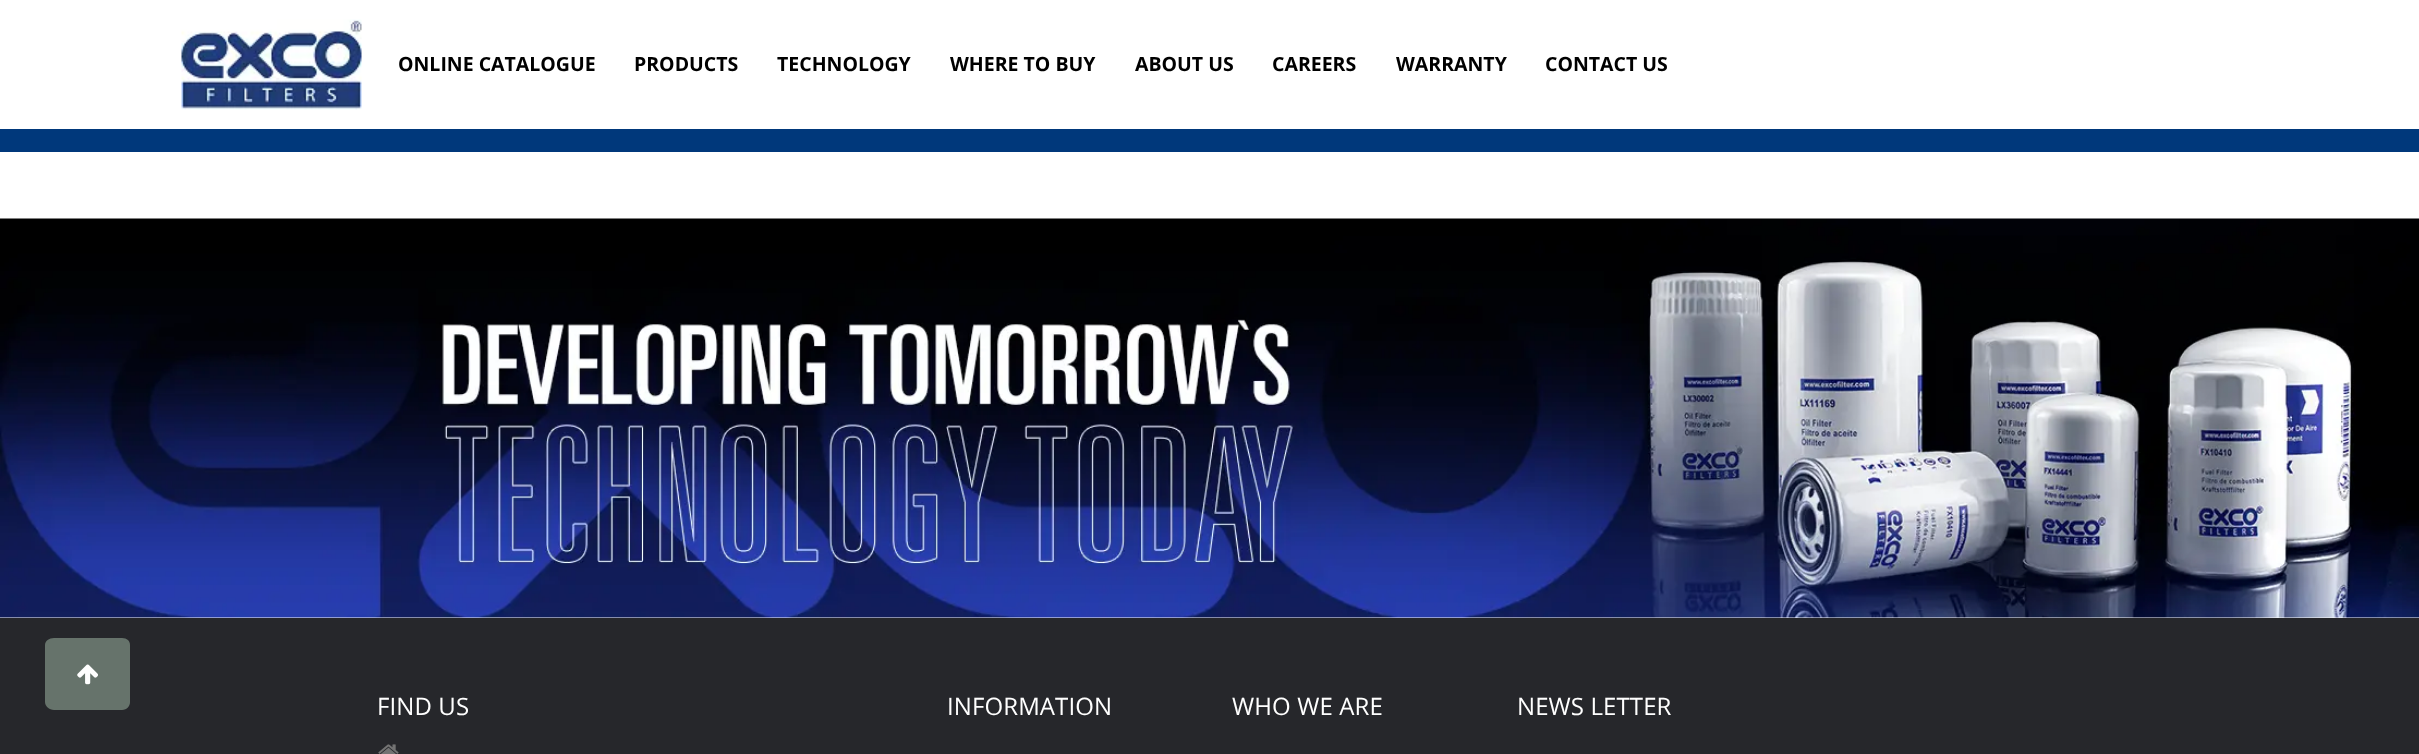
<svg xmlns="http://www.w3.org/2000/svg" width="2419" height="754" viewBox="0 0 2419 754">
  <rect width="100%" height="100%" fill="#fff"/>
  <path d="M0 129h2419v23H0z" fill="#00387b"/>
  <image x="181" y="19" width="181" height="91" href="img/1.png"/>
  <image x="0" y="218" width="2419" height="400" href="img/2.png"/>
  <path d="M0 618h2419v136H0z" fill="#26272b"/>
  <path d="M54 638H122C127 638 130 641 130 645V702C130 706 127 710 122 710H54C49 710 45 706 45 702V645C45 641 49 638 54 638Z" fill="#66736b"/>
  <image x="77" y="664" width="21" height="21" href="img/3.png"/>
  <image x="378" y="744" width="21" height="10" href="img/4.png"/>
  <g font-family="Open Sans" font-size="19.5" font-weight="bold" fill="#000">
    <text x="398" y="71">ONLINE CATALOGUE</text>
    <text x="634" y="71">PRODUCTS</text>
    <text x="777" y="71">TECHNOLOGY</text>
    <text x="950" y="71">WHERE TO BUY</text>
    <text x="1135" y="71">ABOUT US</text>
    <text x="1272" y="71">CAREERS</text>
    <text x="1396" y="71">WARRANTY</text>
    <text x="1545" y="71">CONTACT US</text>
  </g>
  <g font-family="Open Sans" font-size="24" letter-spacing="0.1" fill="#fff">
    <text x="377" y="715">FIND US</text>
    <text x="947" y="715">INFORMATION</text>
    <text x="1232" y="715">WHO WE ARE</text>
    <text x="1517" y="715">NEWS LETTER</text>
  </g>
</svg>
